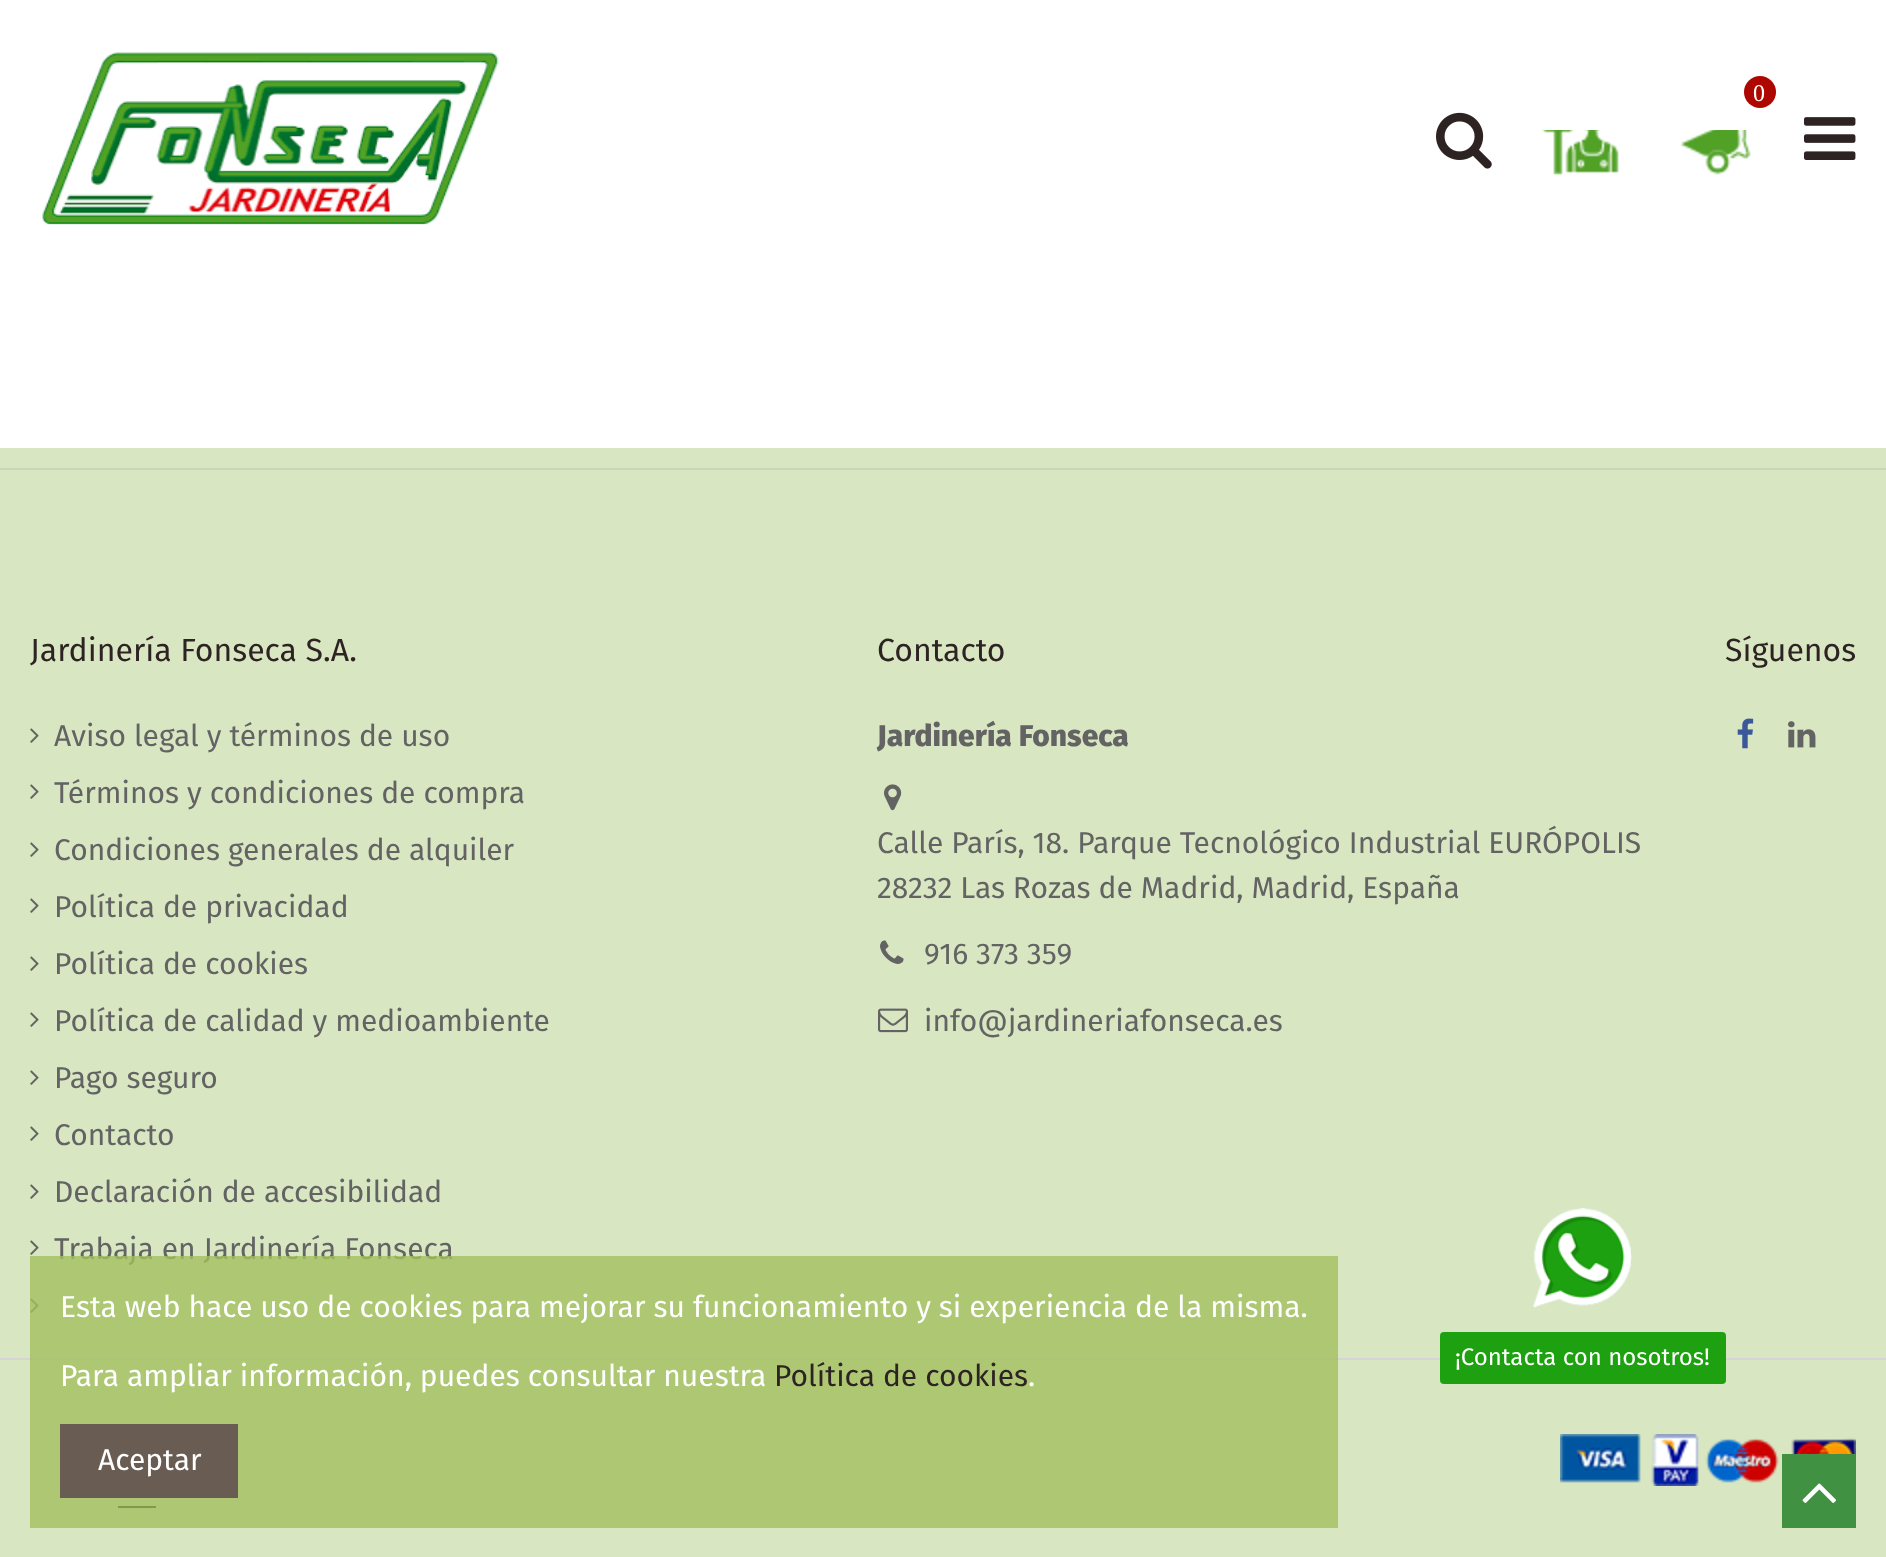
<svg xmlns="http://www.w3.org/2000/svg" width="1886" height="1557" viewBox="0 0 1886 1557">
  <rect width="100%" height="100%" fill="#fff"/>
  <image x="42" y="52" width="457" height="173" href="img/1.png"/>
  <circle cx="1760" cy="92" r="16" fill="#ad0700"/>
  <image x="1680" y="130" width="71" height="45" href="img/2.png"/>
  <image x="1436" y="112" width="56" height="57" href="img/3.png"/>
  <image x="1541" y="130" width="78" height="45" href="img/4.png"/>
  <image x="1804" y="117" width="52" height="43" href="img/5.png"/>
  <path d="M0 448h1886v1109H0z" fill="#d8e6c2"/>
  <path d="M0 468h1886v2H0z" fill="#cad5ba"/>
  <image x="30" y="728" width="9" height="15" href="img/6.png"/>
  <image x="30" y="784" width="9" height="15" href="img/6.png"/>
  <image x="30" y="842" width="9" height="15" href="img/6.png"/>
  <image x="30" y="898" width="9" height="15" href="img/6.png"/>
  <image x="30" y="956" width="9" height="15" href="img/6.png"/>
  <image x="30" y="1012" width="9" height="15" href="img/6.png"/>
  <image x="30" y="1070" width="9" height="15" href="img/6.png"/>
  <image x="30" y="1126" width="9" height="15" href="img/6.png"/>
  <image x="30" y="1184" width="9" height="15" href="img/6.png"/>
  <image x="30" y="1240" width="9" height="15" href="img/6.png"/>
  <image x="30" y="1298" width="9" height="15" href="img/6.png"/>
  <image x="884" y="784" width="18" height="27" href="img/7.png"/>
  <image x="880" y="940" width="24" height="24" href="img/8.png"/>
  <image x="878" y="1008" width="30" height="25" href="img/9.png"/>
  <image x="1737" y="718" width="17" height="31" href="img/10.png"/>
  <image x="1788" y="721" width="28" height="27" href="img/11.png"/>
  <image x="1532" y="1208" width="100" height="100" href="img/12.png"/>
  <path d="M0 1358h1886v2H0z" fill="#d6d4d4"/>
  <rect x="1440" y="1332" width="286" height="52" rx="4" fill="#1da110"/>
  <image x="1560" y="1434" width="296" height="52" href="img/13.png"/>
  <path d="M118 1506h38v2H118z" fill="#000"/>
  <path d="M1782 1454h74v74H1782z" fill="#419142"/>
  <image x="1802" y="1483" width="34" height="20" href="img/14.png"/>
  <text x="1753" y="101" font-family="Liberation Serif" font-size="24" fill="#fff">0</text>
  <text x="30" y="661" font-family="Fira Sans" font-size="32" fill="#2e2323">Jardinería Fonseca S.A.</text>
  <g font-family="Fira Sans" font-size="30" fill="#636363">
    <text x="54" y="746">Aviso legal y términos de uso</text>
    <text x="54" y="803">Términos y condiciones de compra</text>
    <text x="54" y="860">Condiciones generales de alquiler</text>
    <text x="54" y="917">Política de privacidad</text>
    <text x="54" y="974">Política de cookies</text>
    <text x="54" y="1031">Política de calidad y medioambiente</text>
    <text x="54" y="1088">Pago seguro</text>
    <text x="54" y="1145">Contacto</text>
    <text x="54" y="1202">Declaración de accesibilidad</text>
    <text x="54" y="1259">Trabaja en Jardinería Fonseca</text>
  </g>
  <text x="877" y="661" font-family="Fira Sans" font-size="32" fill="#2e2323">Contacto</text>
  <text x="877" y="746" font-family="Fira Sans" font-size="30" font-weight="800" fill="#636363">Jardinería Fonseca</text>
  <g font-family="Fira Sans" font-size="30" fill="#636363">
    <text x="877" y="853">Calle París, 18. Parque Tecnológico Industrial EURÓPOLIS</text>
    <text x="877" y="898">28232 Las Rozas de Madrid, Madrid, España</text>
    <text x="924" y="964">916 373 359</text>
    <text x="924" y="1031">info@jardineriafonseca.es</text>
  </g>
  <text x="1725" y="661" font-family="Fira Sans" font-size="32" fill="#2e2323">Síguenos</text>
  <text x="1455" y="1365" font-family="Fira Sans" font-size="24" fill="#fff">¡Contacta con nosotros!</text>
  <path d="M30 1256h1308v272H30z" fill="#a2bf5ecc"/>
  <g font-family="Fira Sans" font-size="30" fill="#fff">
    <text x="60" y="1317">Esta web hace uso de cookies para mejorar su funcionamiento y si experiencia de la misma.</text>
    <text x="60" y="1386">Para ampliar información, puedes consultar nuestra</text>
  </g>
  <text x="774" y="1386" font-family="Fira Sans" font-size="30" fill="#2e2323">Política de cookies</text>
  <text x="1028" y="1386" font-family="Fira Sans" font-size="30" fill="#fff">.</text>
  <path d="M60 1424h178v74H60z" fill="#695c52"/>
  <text x="98" y="1470" font-family="Fira Sans" font-size="30" fill="#fff">Aceptar</text>
</svg>
